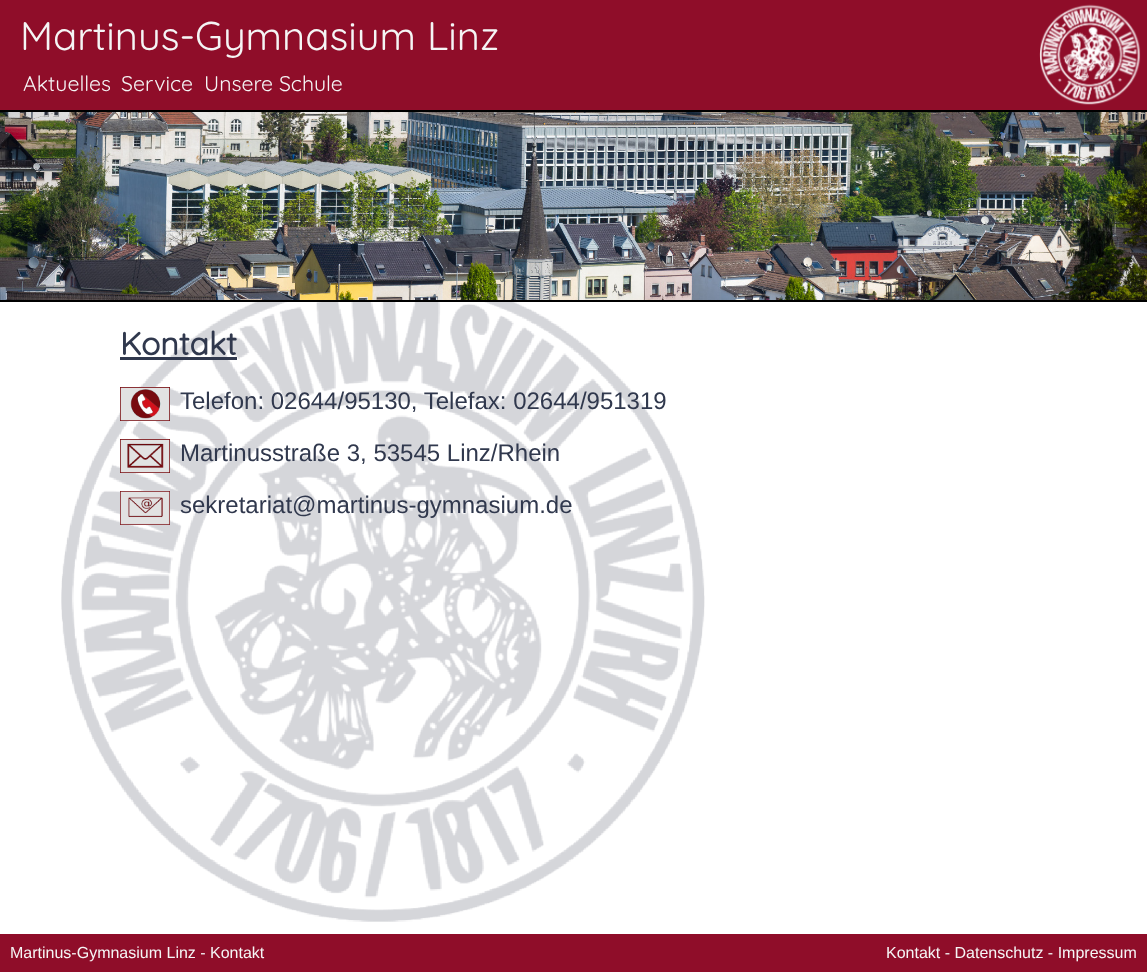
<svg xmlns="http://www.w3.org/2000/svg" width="1147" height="972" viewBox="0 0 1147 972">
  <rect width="100%" height="100%" fill="#fff"/>
  <path d="M0 0h1147v110H0z" fill="#8f0d29"/>
  <image x="1039" y="4" width="102" height="101" href="img/1.png"/>
  <path d="M0 110h1147v2H0z" fill="#000"/>
  <image x="0" y="112" width="1147" height="188" href="img/2.png"/>
  <path d="M0 300h1147v2H0z" fill="#000"/>
  <image x="61" y="302" width="644" height="620" href="img/3.png"/>
  <path d="M120 357h117v3H120z" fill="#30384d"/>
  <image x="120" y="387" width="50" height="34" href="img/4.png"/>
  <image x="120" y="439" width="50" height="34" href="img/5.png"/>
  <image x="120" y="491" width="50" height="34" href="img/6.png"/>
  <path d="M0 934h1147v38H0z" fill="#8f0d29"/>
  <text x="20" y="50" font-family="Quicksand" font-size="40" font-weight="300" fill="#f5f5f5">Martinus-Gymnasium Linz</text>
  <g font-family="Quicksand" font-size="21.25" font-weight="300" fill="#f5f5f5">
    <text x="23" y="91">Aktuelles</text>
    <text x="121" y="91">Service</text>
    <text x="204" y="91">Unsere Schule</text>
  </g>
  <text x="120" y="355" font-family="Quicksand" font-size="32" font-weight="bold" fill="#30384d">Kontakt</text>
  <g font-family="Arimo" font-size="24" fill="#30384d">
    <text x="180" y="409">Telefon: 02644/95130, Telefax: 02644/951319</text>
    <text x="180" y="461">Martinusstraße 3, 53545 Linz/Rhein</text>
    <text x="180" y="513">sekretariat@martinus-gymnasium.de</text>
  </g>
  <g font-family="Arimo" font-size="16" fill="#f5f5f5">
    <text x="10" y="958">Martinus-Gymnasium Linz - Kontakt</text>
    <text x="886" y="958">Kontakt - Datenschutz - Impressum</text>
  </g>
</svg>
